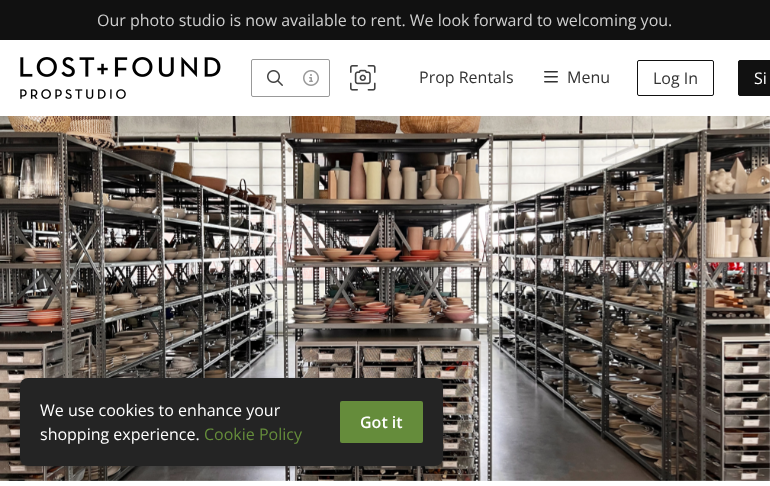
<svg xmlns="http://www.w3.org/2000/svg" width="770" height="486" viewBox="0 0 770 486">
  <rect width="100%" height="100%" fill="#fff"/>
  <path d="M0 0h770v40H0z" fill="#111"/>
  <image x="20" y="57" width="201" height="42" href="img/1.png"/>
  <rect x="251.5" y="59.5" width="78" height="37" rx="1.5" fill="none" stroke="#999"/>
  <image x="267" y="70" width="16" height="16" href="img/2.png"/>
  <image x="303" y="70" width="16" height="16" href="img/3.png"/>
  <image x="350" y="65" width="26" height="26" href="img/4.png"/>
  <image x="544" y="71" width="14" height="12" href="img/5.png"/>
  <rect x="637.5" y="60.5" width="76" height="35" rx="1.5" fill="none" stroke="#111"/>
  <rect x="738.5" y="60.5" width="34" height="35" rx="1.5" fill="#111" stroke="#111"/>
  <image x="0" y="116" width="770" height="365" href="img/6.png"/>
  <rect x="20" y="380" width="423" height="88" rx="8" fill="#32323280" filter="blur(2px)"/>
  <rect x="20" y="378" width="423" height="88" rx="8" fill="#242424"/>
  <rect x="340" y="401" width="83" height="42" rx="2" fill="#658c3b"/>
  <text x="97" y="26" font-family="Open Sans" font-size="16" fill="#cfcfcf">Our photo studio is now available to rent. We look forward to welcoming you.</text>
  <g font-family="Open Sans" font-size="16" fill="#333">
    <text x="419" y="83">Prop Rentals</text>
    <text x="567" y="83">Menu</text>
    <text x="653" y="84">Log In</text>
  </g>
  <g font-family="Open Sans" font-size="16" fill="#fff">
    <text x="754" y="84">Si</text>
    <text x="40" y="416">We use cookies to enhance your</text>
    <text x="40" y="440">shopping experience.</text>
  </g>
  <text x="204" y="440" font-family="Open Sans" font-size="16" fill="#658c3b">Cookie Policy</text>
  <text x="360" y="428" font-family="Open Sans" font-size="16" font-weight="600" fill="#fff">Got it</text>
</svg>
